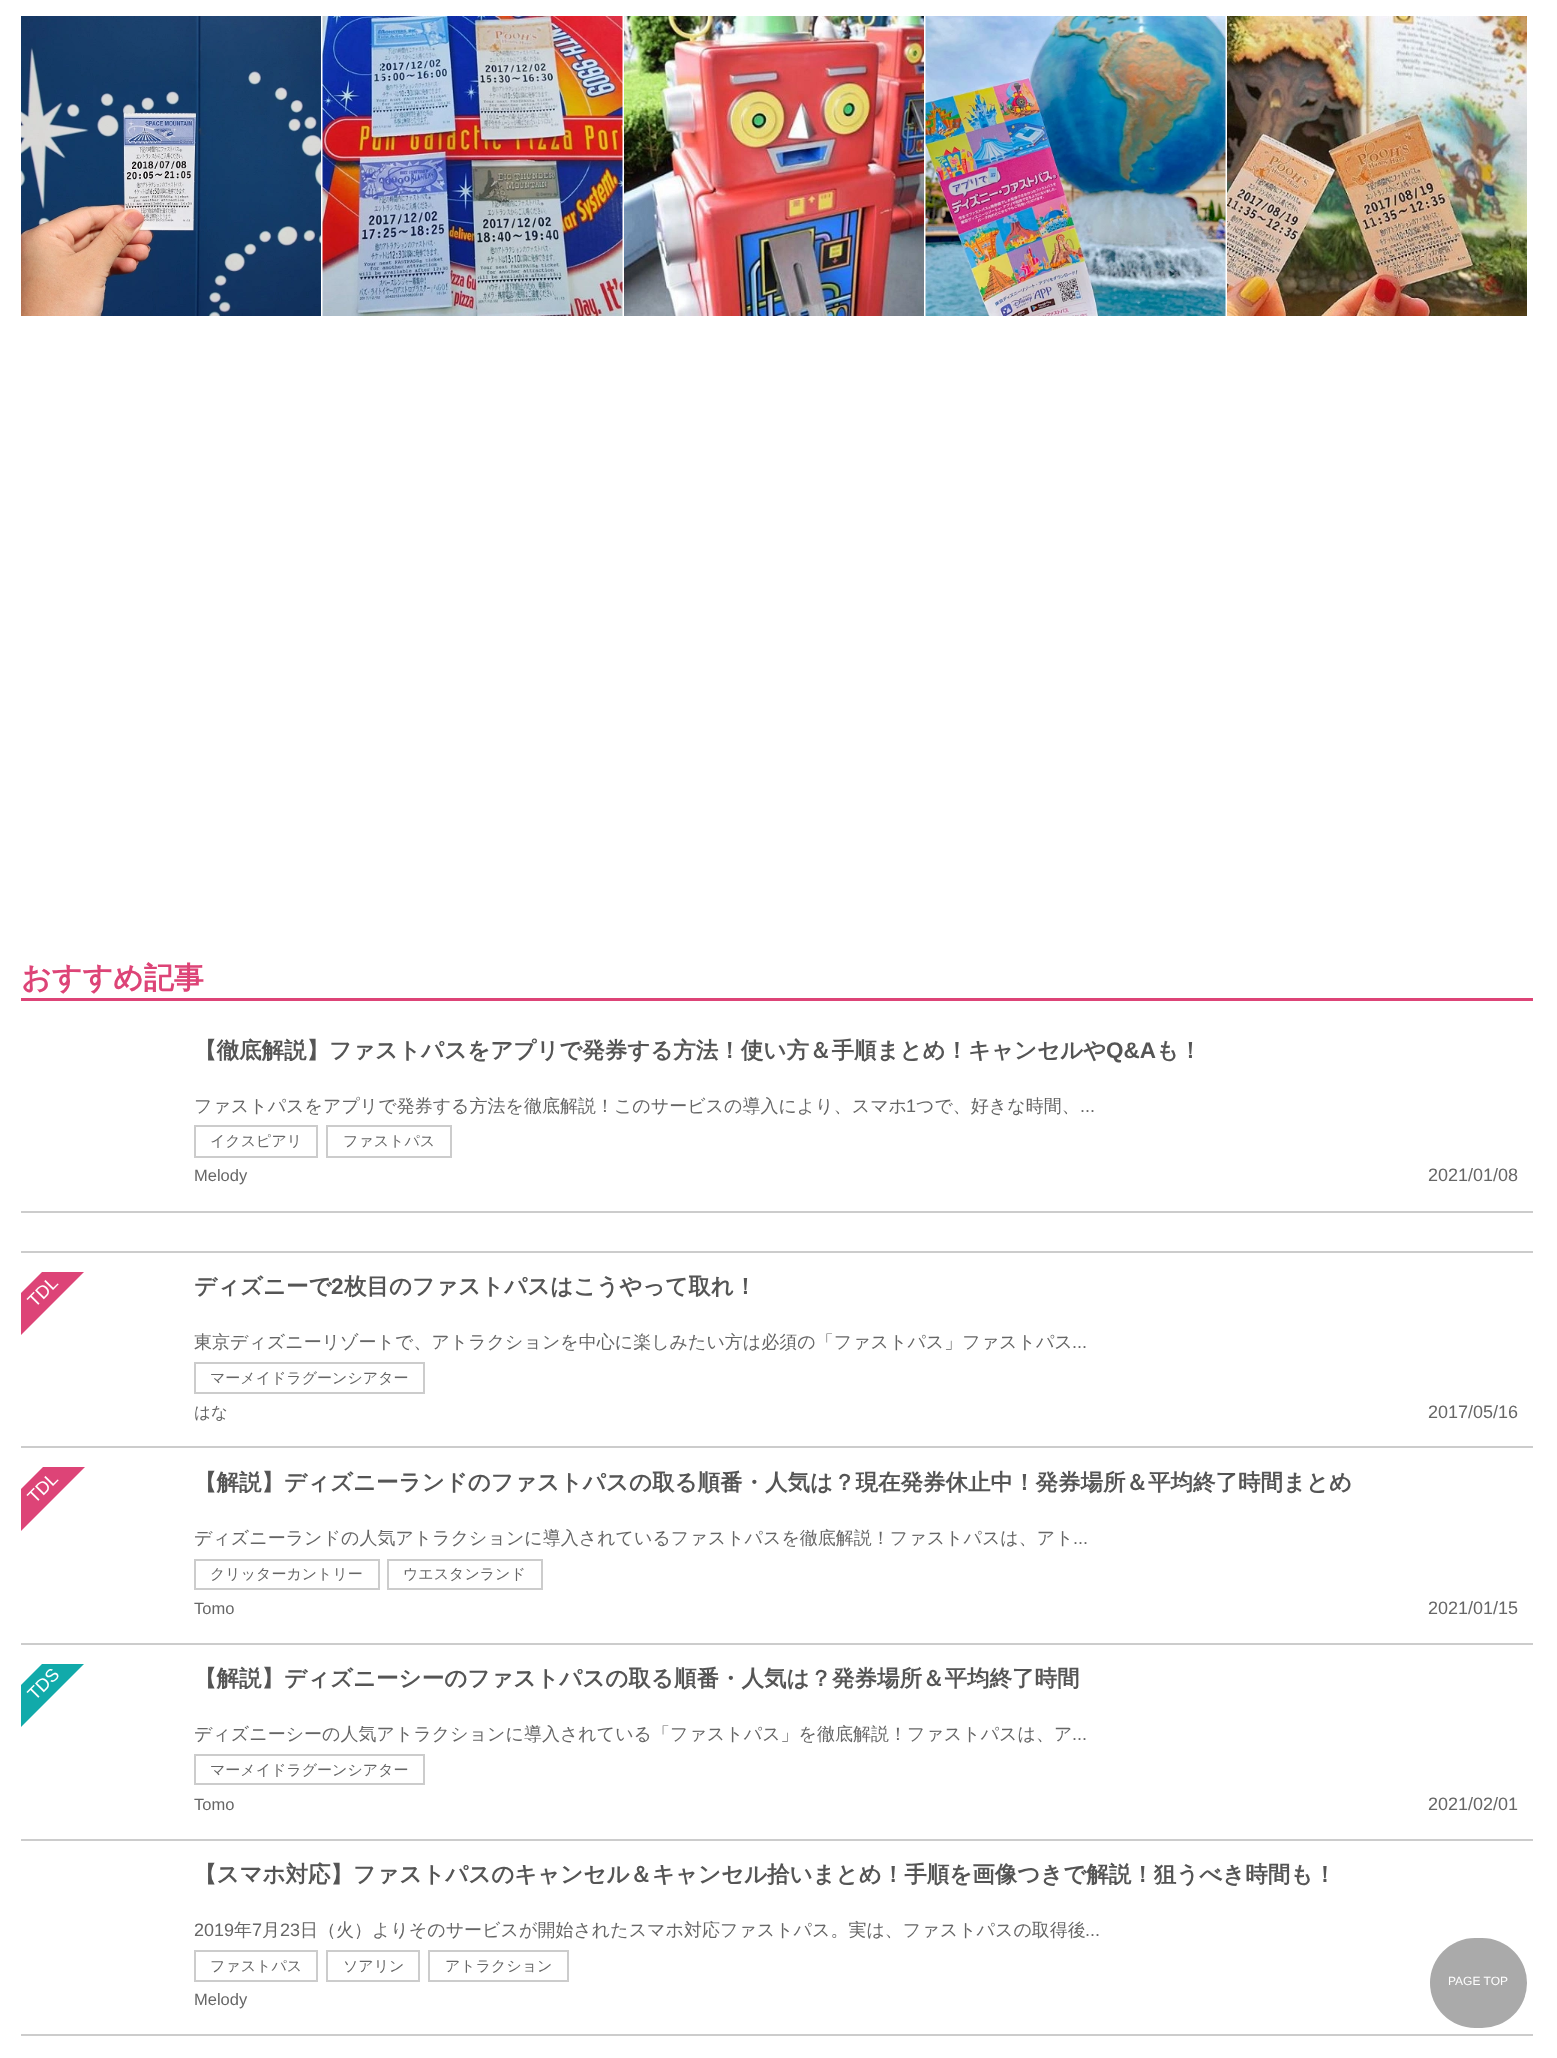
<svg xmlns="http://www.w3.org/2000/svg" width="1557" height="2058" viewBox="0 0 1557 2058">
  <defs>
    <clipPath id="clip1"><path d="M21 1272h153v153H21z"/></clipPath>
    <clipPath id="clip2"><path d="M21 1467h153v153H21z"/></clipPath>
    <clipPath id="clip3"><path d="M21 1664h153v153H21z"/></clipPath>
  </defs>
  <rect width="100%" height="100%" fill="#fff"/>
  <image x="21" y="16" width="300" height="300" href="img/1.png"/>
  <image x="322" y="16" width="301" height="300" href="img/2.png"/>
  <image x="624" y="16" width="300" height="300" href="img/3.png"/>
  <image x="925" y="16" width="301" height="300" href="img/4.png"/>
  <image x="1227" y="16" width="300" height="300" href="img/5.png"/>
  <path d="M21 998h1512v3H21z" fill="#d47"/>
  <path d="M21 1211h1512v2H21z" fill="#ccc"/>
  <path d="M195 1126h122v31H195z" fill="none" stroke="#ccc" stroke-width="2"/>
  <path d="M327 1126h124v31H327z" fill="none" stroke="#ccc" stroke-width="2"/>
  <path d="M21 1251h1512v2H21z" fill="#ccc"/>
  <path d="M21 1446h1512v2H21z" fill="#ccc"/>
  <g clip-path="url(#clip1)">
    <path d="M-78 1392L143 1171L164 1192L-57 1413Z" fill="#d47"/>
  </g>
  <path d="M195 1363h229v30H195z" fill="none" stroke="#ccc" stroke-width="2"/>
  <path d="M21 1643h1512v2H21z" fill="#ccc"/>
  <g clip-path="url(#clip2)">
    <path d="M-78 1588L143 1367L164 1388L-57 1609Z" fill="#d47"/>
  </g>
  <path d="M195 1560h184v29H195z" fill="none" stroke="#ccc" stroke-width="2"/>
  <path d="M388 1560h154v29H388z" fill="none" stroke="#ccc" stroke-width="2"/>
  <path d="M21 1839h1512v2H21z" fill="#ccc"/>
  <g clip-path="url(#clip3)">
    <path d="M-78 1784L143 1563L164 1584L-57 1805Z" fill="#1aa"/>
  </g>
  <path d="M195 1755h229v29H195z" fill="none" stroke="#ccc" stroke-width="2"/>
  <path d="M21 2034h1512v2H21z" fill="#ccc"/>
  <path d="M195 1951h122v30H195z" fill="none" stroke="#ccc" stroke-width="2"/>
  <path d="M327 1951h92v30H327z" fill="none" stroke="#ccc" stroke-width="2"/>
  <path d="M429 1951h139v30H429z" fill="none" stroke="#ccc" stroke-width="2"/>
  <rect x="1430" y="1938" width="97" height="90" rx="45" fill="#aaa"/>
  <text x="21" y="988" font-family="WenQuanYi Zen Hei" font-size="30" font-weight="bold" fill="#d47">おすすめ記事</text>
  <text x="194" y="1058" font-family="WenQuanYi Zen Hei" font-size="22.5" font-weight="bold" fill="#555">【徹底解説】ファストパスをアプリで発券する方法！使い方＆手順まとめ！キャンセルや</text>
  <text x="1106" y="1058" font-family="Liberation Sans" font-size="22.5" font-weight="bold" fill="#555">Q&amp;A</text>
  <text x="1156" y="1058" font-family="WenQuanYi Zen Hei" font-size="22.5" font-weight="bold" fill="#555">も！</text>
  <text x="194" y="1112" font-family="WenQuanYi Zen Hei" font-size="18" font-weight="500" fill="#666">ファストパスをアプリで発券する方法を徹底解説！このサービスの導入により、スマホ</text>
  <text x="906" y="1112" font-family="Liberation Sans" font-size="18" fill="#666">1</text>
  <text x="916" y="1112" font-family="WenQuanYi Zen Hei" font-size="18" font-weight="500" fill="#666">つで、好きな時間、</text>
  <text x="1080" y="1112" font-family="Liberation Sans" font-size="18" fill="#666">...</text>
  <g font-family="WenQuanYi Zen Hei" font-size="15" font-weight="500" fill="#666">
    <text x="210" y="1146">イクスピアリ</text>
    <text x="343" y="1146">ファストパス</text>
  </g>
  <text x="194" y="1181" font-family="Liberation Sans" font-size="16.5" fill="#666">Melody</text>
  <text x="1428" y="1181" font-family="Liberation Sans" font-size="18" fill="#666">2021/01/08</text>
  <text x="35" y="1308" transform="rotate(-45 35 1308)" font-family="Liberation Sans" font-size="18" fill="#fff">TDL</text>
  <text x="194" y="1294" font-family="WenQuanYi Zen Hei" font-size="22.5" font-weight="bold" fill="#555">ディズニーで</text>
  <text x="331" y="1294" font-family="Liberation Sans" font-size="22.5" font-weight="bold" fill="#555">2</text>
  <text x="344" y="1294" font-family="WenQuanYi Zen Hei" font-size="22.5" font-weight="bold" fill="#555">枚目のファストパスはこうやって取れ！</text>
  <text x="194" y="1348" font-family="WenQuanYi Zen Hei" font-size="18" font-weight="500" fill="#666">東京ディズニーリゾートで、アトラクションを中心に楽しみたい方は必須の「ファストパス」ファストパス</text>
  <text x="1072" y="1348" font-family="Liberation Sans" font-size="18" fill="#666">...</text>
  <text x="210" y="1383" font-family="WenQuanYi Zen Hei" font-size="15" font-weight="500" fill="#666">マーメイドラグーンシアター</text>
  <text x="194" y="1418" font-family="WenQuanYi Zen Hei" font-size="16.5" font-weight="500" fill="#666">はな</text>
  <text x="1428" y="1418" font-family="Liberation Sans" font-size="18" fill="#666">2017/05/16</text>
  <text x="35" y="1504" transform="rotate(-45 35 1504)" font-family="Liberation Sans" font-size="18" fill="#fff">TDL</text>
  <text x="194" y="1490" font-family="WenQuanYi Zen Hei" font-size="22.5" font-weight="bold" fill="#555">【解説】ディズニーランドのファストパスの取る順番・人気は？現在発券休止中！発券場所＆平均終了時間まとめ</text>
  <text x="194" y="1544" font-family="WenQuanYi Zen Hei" font-size="18" font-weight="500" fill="#666">ディズニーランドの人気アトラクションに導入されているファストパスを徹底解説！ファストパスは、アト</text>
  <text x="1073" y="1544" font-family="Liberation Sans" font-size="18" fill="#666">...</text>
  <g font-family="WenQuanYi Zen Hei" font-size="15" font-weight="500" fill="#666">
    <text x="210" y="1579">クリッターカントリー</text>
    <text x="403" y="1579">ウエスタンランド</text>
  </g>
  <text x="194" y="1614" font-family="Liberation Sans" font-size="16.5" fill="#666">Tomo</text>
  <text x="1428" y="1614" font-family="Liberation Sans" font-size="18" fill="#666">2021/01/15</text>
  <text x="35" y="1701" transform="rotate(-45 35 1701)" font-family="Liberation Sans" font-size="18" fill="#fff">TDS</text>
  <text x="194" y="1686" font-family="WenQuanYi Zen Hei" font-size="22.5" font-weight="bold" fill="#555">【解説】ディズニーシーのファストパスの取る順番・人気は？発券場所＆平均終了時間</text>
  <text x="194" y="1740" font-family="WenQuanYi Zen Hei" font-size="18" font-weight="500" fill="#666">ディズニーシーの人気アトラクションに導入されている「ファストパス」を徹底解説！ファストパスは、ア</text>
  <text x="1072" y="1740" font-family="Liberation Sans" font-size="18" fill="#666">...</text>
  <text x="210" y="1775" font-family="WenQuanYi Zen Hei" font-size="15" font-weight="500" fill="#666">マーメイドラグーンシアター</text>
  <text x="194" y="1810" font-family="Liberation Sans" font-size="16.5" fill="#666">Tomo</text>
  <text x="1428" y="1810" font-family="Liberation Sans" font-size="18" fill="#666">2021/02/01</text>
  <text x="194" y="1882" font-family="WenQuanYi Zen Hei" font-size="22.5" font-weight="bold" fill="#555">【スマホ対応】ファストパスのキャンセル＆キャンセル拾いまとめ！手順を画像つきで解説！狙うべき時間も！</text>
  <text x="194" y="1936" font-family="Liberation Sans" font-size="18" fill="#666">2019</text>
  <text x="234" y="1936" font-family="WenQuanYi Zen Hei" font-size="18" font-weight="500" fill="#666">年</text>
  <text x="252" y="1936" font-family="Liberation Sans" font-size="18" fill="#666">7</text>
  <text x="262" y="1936" font-family="WenQuanYi Zen Hei" font-size="18" font-weight="500" fill="#666">月</text>
  <text x="280" y="1936" font-family="Liberation Sans" font-size="18" fill="#666">23</text>
  <text x="300" y="1936" font-family="WenQuanYi Zen Hei" font-size="18" font-weight="500" fill="#666">日（火）よりそのサービスが開始されたスマホ対応ファストパス。実は、ファストパスの取得後</text>
  <text x="1085" y="1936" font-family="Liberation Sans" font-size="18" fill="#666">...</text>
  <g font-family="WenQuanYi Zen Hei" font-size="15" font-weight="500" fill="#666">
    <text x="210" y="1971">ファストパス</text>
    <text x="343" y="1971">ソアリン</text>
    <text x="445" y="1971">アトラクション</text>
  </g>
  <text x="194" y="2005" font-family="Liberation Sans" font-size="16.5" fill="#666">Melody</text>
  <text x="1448" y="1985" font-family="Liberation Sans" font-size="12" fill="#fff">PAGE TOP</text>
</svg>
